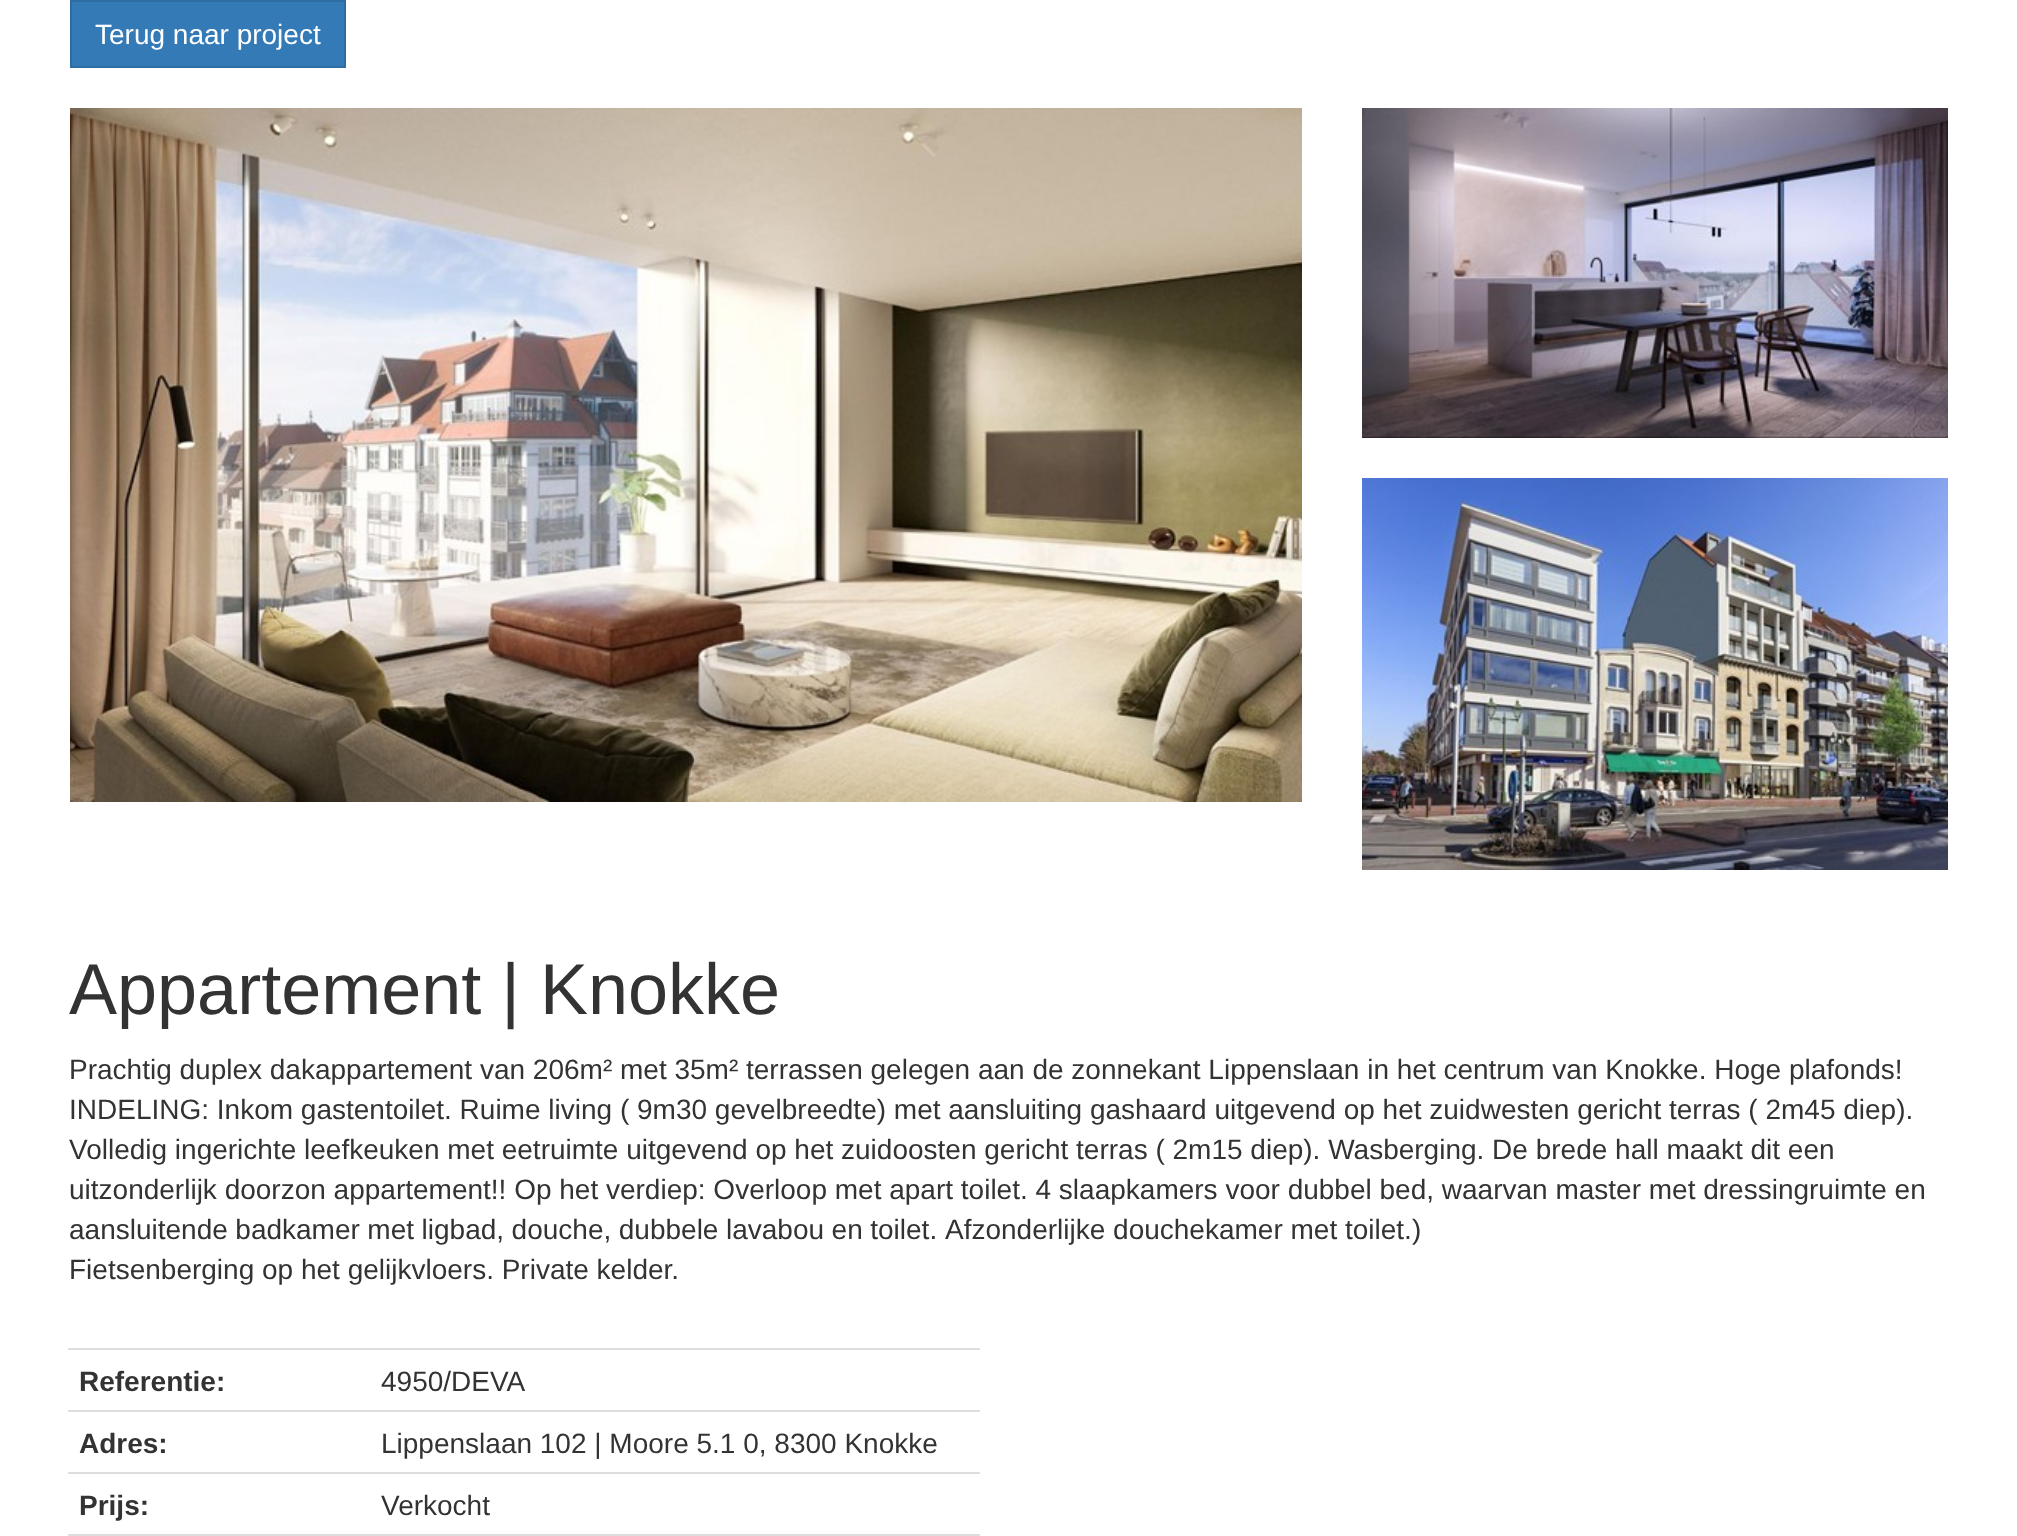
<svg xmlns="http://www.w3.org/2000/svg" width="2017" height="1536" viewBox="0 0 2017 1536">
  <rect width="100%" height="100%" fill="#fff"/>
  <path d="M71 1h274v66H71z" fill="#337ab7" stroke="#2e6da4" stroke-width="2"/>
  <image x="70" y="108" width="1232" height="694" href="img/1.png"/>
  <image x="1362" y="108" width="586" height="330" href="img/2.png"/>
  <image x="1362" y="478" width="586" height="392" href="img/3.png"/>
  <path d="M68 1348h912v2H68z" fill="#ddd"/>
  <path d="M68 1410h912v2H68z" fill="#ddd"/>
  <path d="M68 1472h912v2H68z" fill="#ddd"/>
  <path d="M68 1534h912v2H68z" fill="#ddd"/>
  <text x="95" y="44" font-family="Liberation Sans" font-size="28" fill="#fff">Terug naar project</text>
  <text x="69" y="1014" font-family="Liberation Sans" font-size="72" fill="#333">Appartement | Knokke</text>
  <g font-family="Liberation Sans" font-size="28" fill="#333">
    <text x="69" y="1079">Prachtig duplex dakappartement van 206m² met 35m² terrassen gelegen aan de zonnekant Lippenslaan in het centrum van Knokke. Hoge plafonds!</text>
    <text x="69" y="1119">INDELING: Inkom gastentoilet. Ruime living ( 9m30 gevelbreedte) met aansluiting gashaard uitgevend op het zuidwesten gericht terras ( 2m45 diep).</text>
    <text x="69" y="1159">Volledig ingerichte leefkeuken met eetruimte uitgevend op het zuidoosten gericht terras ( 2m15 diep). Wasberging. De brede hall maakt dit een</text>
    <text x="69" y="1199">uitzonderlijk doorzon appartement!! Op het verdiep: Overloop met apart toilet. 4 slaapkamers voor dubbel bed, waarvan master met dressingruimte en</text>
    <text x="69" y="1239" word-spacing="-0.25">aansluitende badkamer met ligbad, douche, dubbele lavabou en toilet.</text>
    <text x="945" y="1239">Afzonderlijke douchekamer met toilet.)</text>
    <text x="69" y="1279">Fietsenberging op het gelijkvloers. Private kelder.</text>
  </g>
  <text x="79" y="1391" font-family="Liberation Sans" font-size="28" font-weight="bold" fill="#333">Referentie:</text>
  <text x="381" y="1391" font-family="Liberation Sans" font-size="28" fill="#333">4950/DEVA</text>
  <text x="79" y="1453" font-family="Liberation Sans" font-size="28" font-weight="bold" fill="#333">Adres:</text>
  <text x="381" y="1453" font-family="Liberation Sans" font-size="28" fill="#333">Lippenslaan 102 | Moore 5.1 0, 8300 Knokke</text>
  <text x="79" y="1515" font-family="Liberation Sans" font-size="28" font-weight="bold" fill="#333">Prijs:</text>
  <text x="381" y="1515" font-family="Liberation Sans" font-size="28" fill="#333">Verkocht</text>
</svg>
